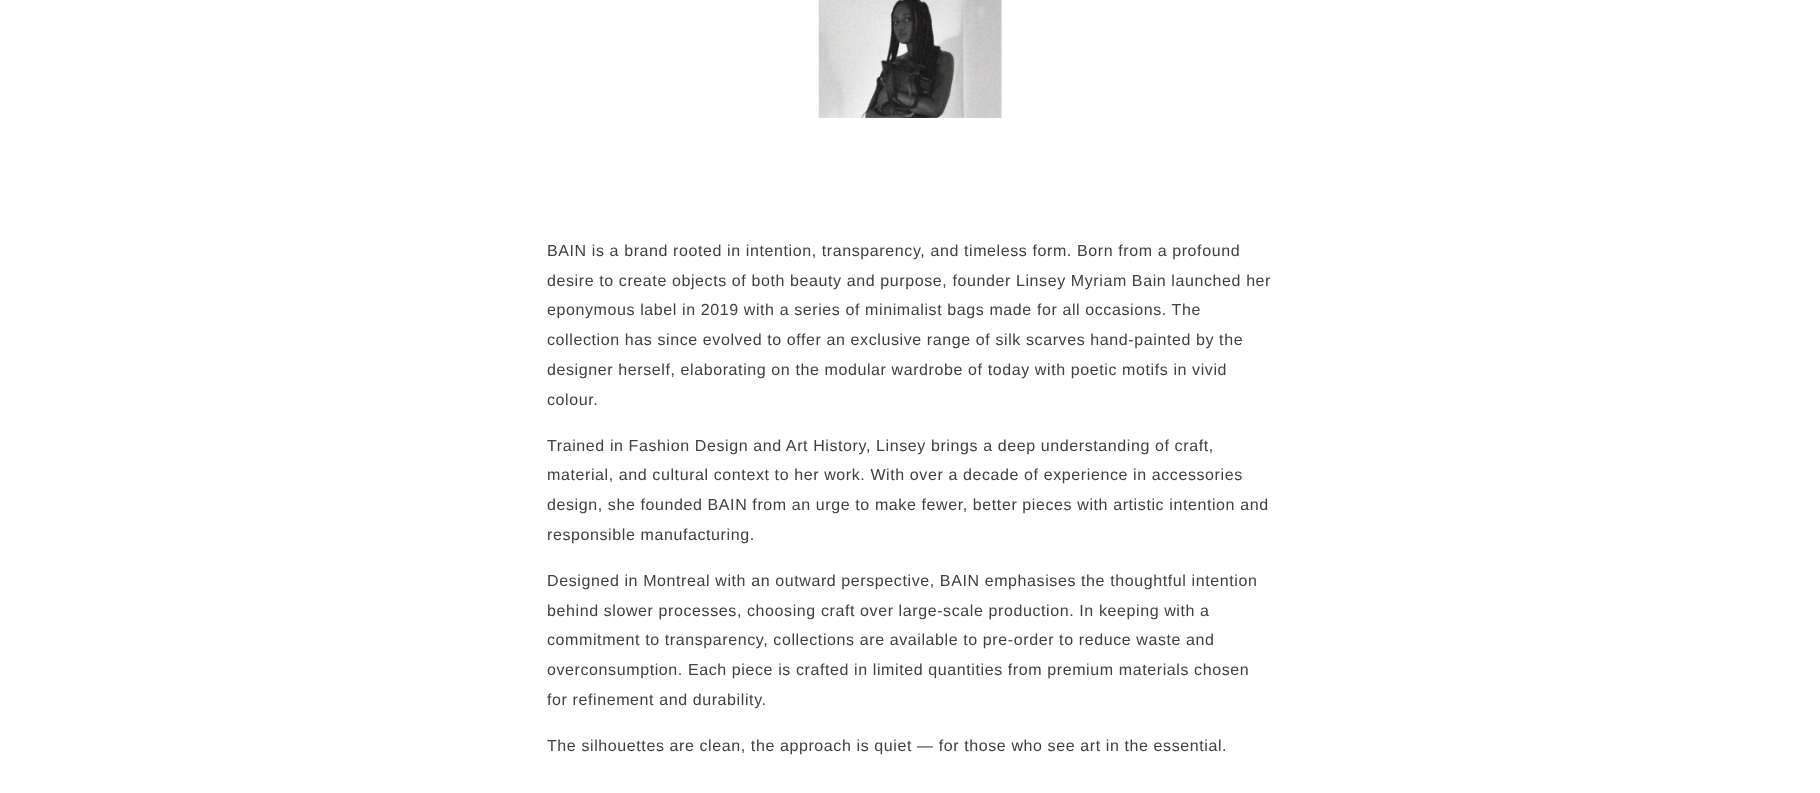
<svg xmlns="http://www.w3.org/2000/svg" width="1820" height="793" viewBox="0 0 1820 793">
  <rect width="100%" height="100%" fill="#fff"/>
  <image x="818" y="0" width="184" height="118" href="img/1.png"/>
  <g font-family="Liberation Sans" font-size="16" letter-spacing="0.6" fill="#404040">
    <text x="547" y="256">BAIN is a brand rooted in intention, transparency, and timeless form. Born from a profound</text>
    <text x="547" y="286">desire to create objects of both beauty and purpose, founder Linsey Myriam Bain launched her</text>
    <text x="547" y="315">eponymous label in 2019 with a series of minimalist bags made for all occasions. The</text>
    <text x="547" y="345">collection has since evolved to offer an exclusive range of silk scarves hand-painted by the</text>
    <text x="547" y="375">designer herself, elaborating on the modular wardrobe of today with poetic motifs in vivid</text>
    <text x="547" y="405">colour.</text>
    <text x="547" y="451">Trained in Fashion Design and Art History, Linsey brings a deep understanding of craft,</text>
    <text x="547" y="480">material, and cultural context to her work. With over a decade of experience in accessories</text>
    <text x="547" y="510">design, she founded BAIN from an urge to make fewer, better pieces with artistic intention and</text>
    <text x="547" y="540">responsible manufacturing.</text>
    <text x="547" y="586">Designed in Montreal with an outward perspective, BAIN emphasises the thoughtful intention</text>
    <text x="547" y="616">behind slower processes, choosing craft over large-scale production. In keeping with a</text>
    <text x="547" y="645">commitment to transparency, collections are available to pre-order to reduce waste and</text>
    <text x="547" y="675">overconsumption. Each piece is crafted in limited quantities from premium materials chosen</text>
    <text x="547" y="705">for refinement and durability.</text>
    <text x="547" y="751">The silhouettes are clean, the approach is quiet — for those who see art in the essential.</text>
  </g>
</svg>
